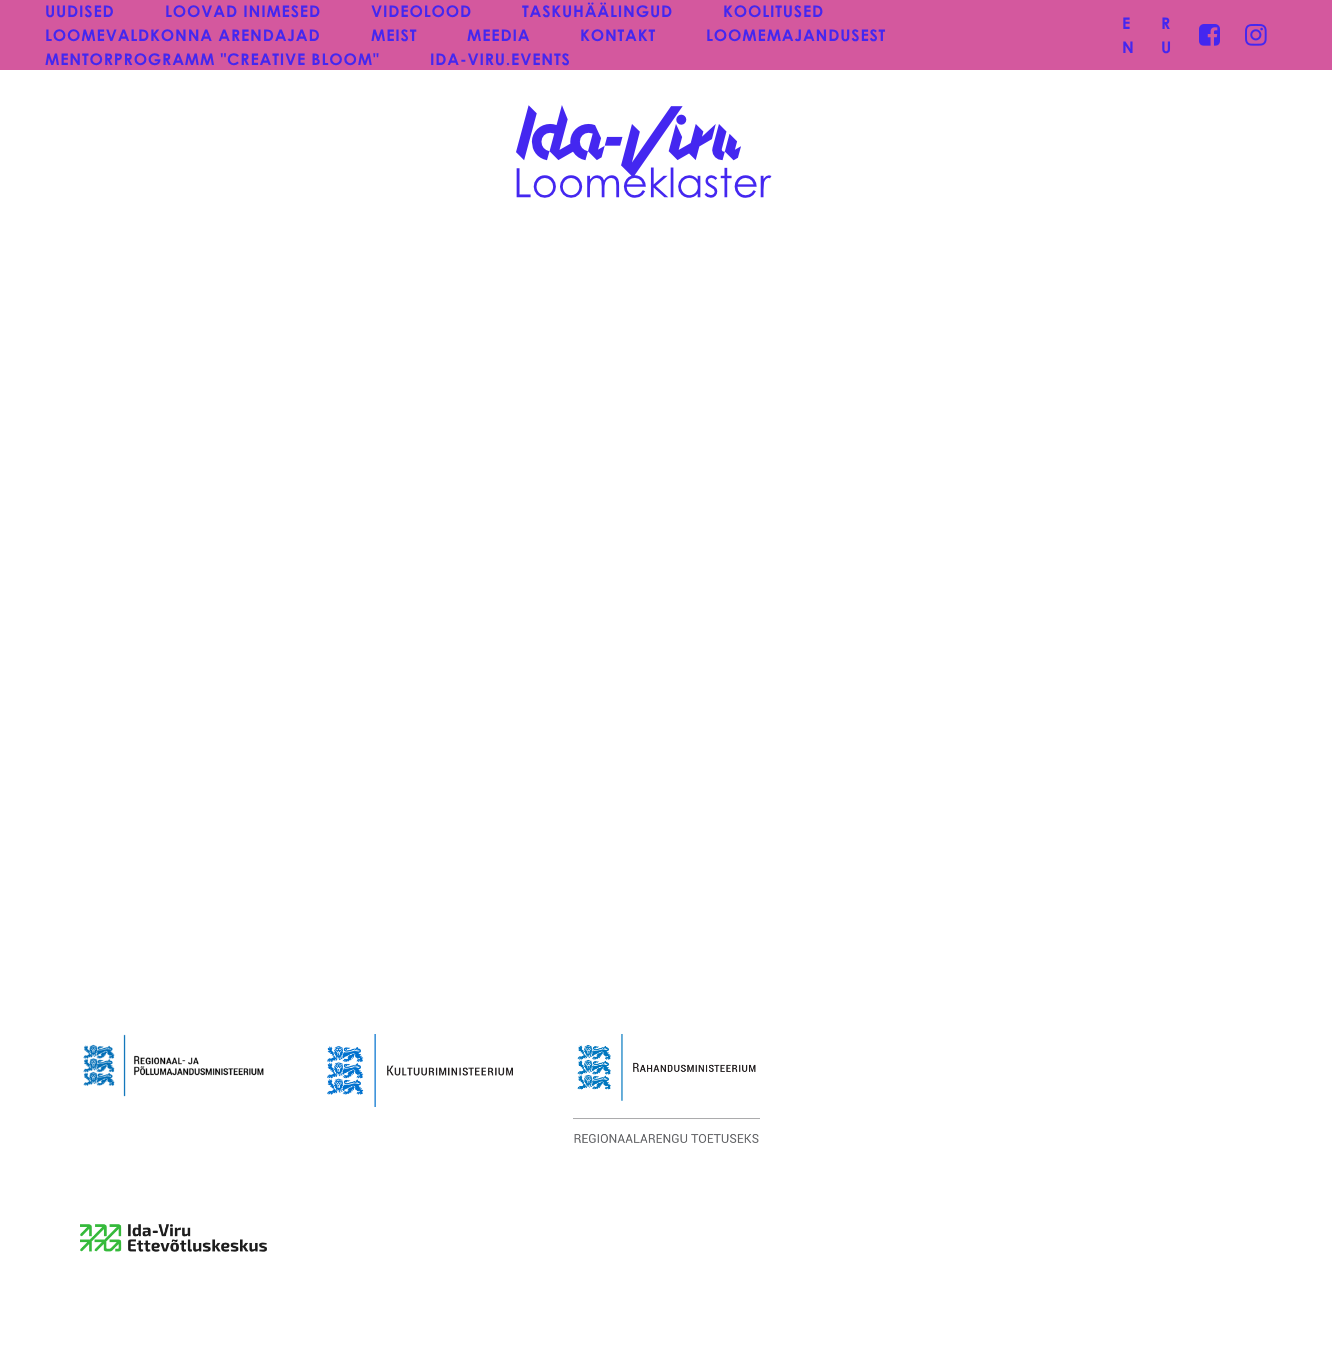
<svg xmlns="http://www.w3.org/2000/svg" width="1332" height="1354" viewBox="0 0 1332 1354">
  <rect width="100%" height="100%" fill="#fff"/>
  <path d="M0 0h1332v70H0z" fill="#d4589e"/>
  <image x="1199" y="24" width="21" height="22" href="img/1.png"/>
  <image x="1245" y="24" width="22" height="22" href="img/2.png"/>
  <image x="516" y="105" width="256" height="93" href="img/3.png"/>
  <image x="83" y="1034" width="181" height="63" href="img/4.png"/>
  <image x="327" y="1034" width="186" height="73" href="img/5.png"/>
  <image x="573" y="1034" width="187" height="109" href="img/6.png"/>
  <image x="80" y="1224" width="187" height="28" href="img/7.png"/>
  <g font-family="Century Gothic" font-size="16" font-weight="bold" letter-spacing="0.8" fill="#4427f0">
    <text x="45" y="17">UUDISED</text>
    <text x="165" y="17">LOOVAD INIMESED</text>
    <text x="371" y="17">VIDEOLOOD</text>
    <text x="522" y="17">TASKUHÄÄLINGUD</text>
    <text x="723" y="17">KOOLITUSED</text>
    <text x="45" y="41">LOOMEVALDKONNA ARENDAJAD</text>
    <text x="371" y="41">MEIST</text>
    <text x="467" y="41">MEEDIA</text>
    <text x="580" y="41">KONTAKT</text>
    <text x="706" y="41">LOOMEMAJANDUSEST</text>
    <text x="45" y="65">MENTORPROGRAMM "CREATIVE BLOOM"</text>
    <text x="430" y="65">IDA-VIRU.EVENTS</text>
    <text x="1122" y="29">E</text>
    <text x="1122" y="53">N</text>
    <text x="1161" y="29">R</text>
    <text x="1161" y="53">U</text>
  </g>
</svg>
